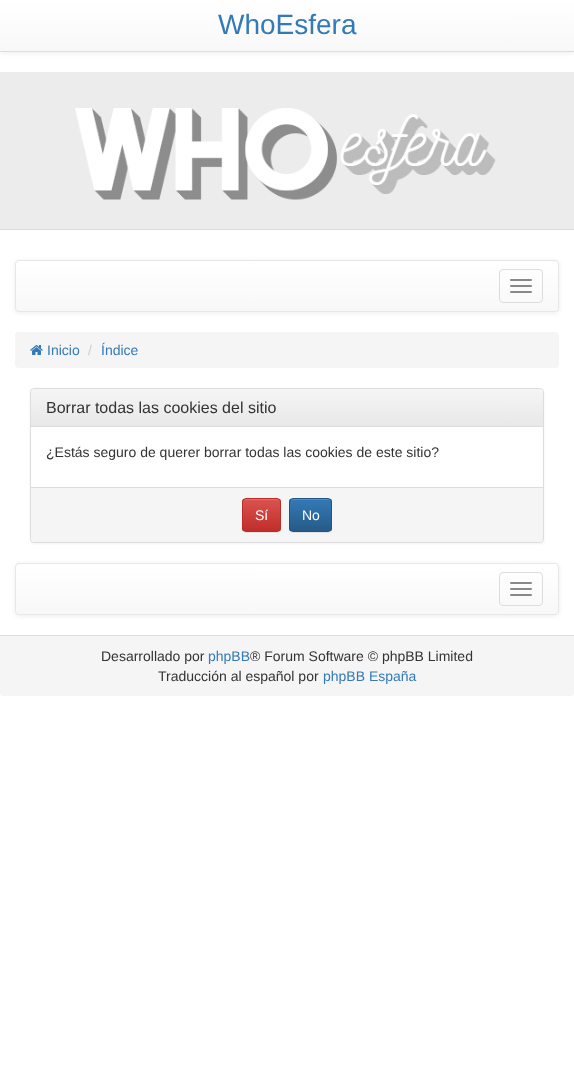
<svg xmlns="http://www.w3.org/2000/svg" width="574" height="1092" viewBox="0 0 574 1092">
  <defs>
    <linearGradient id="g1" gradientUnits="userSpaceOnUse" x1="287" y1="0" x2="287" y2="51"><stop offset="0" stop-color="#fff"/><stop offset="1" stop-color="#f8f8f8"/></linearGradient>
    <clipPath id="clip1"><rect x="15" y="260" width="544" height="52" rx="4"/></clipPath>
    <linearGradient id="g2" gradientUnits="userSpaceOnUse" x1="287" y1="261" x2="287" y2="311"><stop offset="0" stop-color="#fff"/><stop offset="1" stop-color="#f8f8f8"/></linearGradient>
    <linearGradient id="g3" gradientUnits="userSpaceOnUse" x1="287" y1="389" x2="287" y2="426"><stop offset="0" stop-color="#f5f5f5"/><stop offset="1" stop-color="#e8e8e8"/></linearGradient>
    <clipPath id="clip2"><rect x="242" y="498" width="39" height="34" rx="4"/></clipPath>
    <linearGradient id="g4" gradientUnits="userSpaceOnUse" x1="262" y1="499" x2="262" y2="531"><stop offset="0" stop-color="#d9534f"/><stop offset="1" stop-color="#c12e2a"/></linearGradient>
    <clipPath id="clip3"><rect x="289" y="498" width="43" height="34" rx="4"/></clipPath>
    <linearGradient id="g5" gradientUnits="userSpaceOnUse" x1="311" y1="499" x2="311" y2="531"><stop offset="0" stop-color="#337ab7"/><stop offset="1" stop-color="#265a88"/></linearGradient>
    <clipPath id="clip4"><rect x="15" y="563" width="544" height="52" rx="4"/></clipPath>
    <linearGradient id="g6" gradientUnits="userSpaceOnUse" x1="287" y1="564" x2="287" y2="614"><stop offset="0" stop-color="#fff"/><stop offset="1" stop-color="#f8f8f8"/></linearGradient>
  </defs>
  <rect width="100%" height="100%" fill="#fff"/>
  <path d="M0 1h574v52H0z" fill="#00000012" filter="blur(2.5px)"/>
  <path d="M0 0h574v51H0z" fill="url(#g1)"/>
  <path d="M0 51h574v1H0z" fill="#ddd"/>
  <path d="M0 72h574v157H0z" fill="#ececec"/>
  <path d="M0 229h574v1H0z" fill="#ddd"/>
  <image x="75" y="108" width="421" height="92" href="img/1.png"/>
  <rect x="15" y="261" width="544" height="52" rx="4" fill="#00000012" filter="blur(2.5px)"/>
  <g clip-path="url(#clip1)">
    <path d="M15 261h544v50H15z" fill="url(#g2)"/>
  </g>
  <rect x="15.5" y="260.5" width="543" height="51" rx="3.5" fill="none" stroke="#e7e7e7"/>
  <rect x="499.5" y="269.5" width="43" height="33" rx="3.5" fill="none" stroke="#ddd"/>
  <rect x="510" y="279" width="22" height="2" rx="1" fill="#888"/>
  <rect x="510" y="285" width="22" height="2" rx="1" fill="#888"/>
  <rect x="510" y="291" width="22" height="2" rx="1" fill="#888"/>
  <rect x="15" y="332" width="544" height="36" rx="4" fill="#f5f5f5"/>
  <image x="30" y="345" width="13" height="10" href="img/2.png"/>
  <rect x="30" y="389" width="514" height="155" rx="4" fill="#0000000d" filter="blur(1px)"/>
  <rect x="30.5" y="388.5" width="513" height="154" rx="3.5" fill="#fff" stroke="#ddd"/>
  <path d="M34 389H540C541.5 389 543 390.5 543 392V426H31V392C31 390.5 32.5 389 34 389Z" fill="url(#g3)"/>
  <path d="M31 426h512v1H31z" fill="#ddd"/>
  <path d="M31 487H543V539C543 540.5 541.5 542 540 542H34C32.5 542 31 540.5 31 539Z" fill="#f5f5f5"/>
  <path d="M31 487h512v1H31z" fill="#ddd"/>
  <rect x="242" y="499" width="39" height="34" rx="4" fill="#00000012" filter="blur(0.5px)"/>
  <g clip-path="url(#clip2)">
    <path d="M242 499h39v32H242z" fill="url(#g4)"/>
  </g>
  <path d="M246 500H277C279 500 280 501 280 503C280 498 276 499 272 499H251C247 499 243 498 243 503C243 501 244 500 246 500Z" fill="#df6c69"/>
  <rect x="242.5" y="498.5" width="38" height="33" rx="3.5" fill="none" stroke="#b92c28"/>
  <rect x="289" y="499" width="43" height="34" rx="4" fill="#00000012" filter="blur(0.5px)"/>
  <g clip-path="url(#clip3)">
    <path d="M289 499h43v32H289z" fill="url(#g5)"/>
  </g>
  <path d="M293 500H328C330 500 331 501 331 503C331 498 326 499 322 499H299C295 499 290 498 290 503C290 501 291 500 293 500Z" fill="#528ec1"/>
  <rect x="289.5" y="498.5" width="42" height="33" rx="3.5" fill="none" stroke="#245580"/>
  <rect x="15" y="564" width="544" height="52" rx="4" fill="#00000012" filter="blur(2.5px)"/>
  <g clip-path="url(#clip4)">
    <path d="M15 564h544v50H15z" fill="url(#g6)"/>
  </g>
  <rect x="15.5" y="563.5" width="543" height="51" rx="3.5" fill="none" stroke="#e7e7e7"/>
  <rect x="499.5" y="572.5" width="43" height="33" rx="3.5" fill="none" stroke="#ddd"/>
  <rect x="510" y="582" width="22" height="2" rx="1" fill="#888"/>
  <rect x="510" y="588" width="22" height="2" rx="1" fill="#888"/>
  <rect x="510" y="594" width="22" height="2" rx="1" fill="#888"/>
  <path d="M0 635H574V693C574 694.5 572.5 696 571 696H3C1.5 696 0 694.5 0 693Z" fill="#f5f5f5"/>
  <path d="M0 635h574v1H0z" fill="#ddd"/>
  <text x="218" y="34" font-family="Liberation Sans" font-size="28" fill="#337ab7">WhoEsfera</text>
  <text x="47" y="355" font-family="Liberation Sans" font-size="14" fill="#337ab7">Inicio</text>
  <text x="88" y="355" font-family="Liberation Sans" font-size="14" fill="#ccc">/</text>
  <text x="101" y="355" font-family="Liberation Sans" font-size="14" fill="#337ab7">Índice</text>
  <text x="46" y="413" font-family="Liberation Sans" font-size="16" fill="#333">Borrar todas las cookies del sitio</text>
  <text x="46" y="457" font-family="Liberation Sans" font-size="14" fill="#333">¿Estás seguro de querer borrar todas las cookies de este sitio?</text>
  <g font-family="Liberation Sans" font-size="14" fill="#fff">
    <text x="255" y="520">Sí</text>
    <text x="302" y="520">No</text>
  </g>
  <text x="101" y="661" font-family="Liberation Sans" font-size="14" fill="#333">Desarrollado por</text>
  <text x="208" y="661" font-family="Liberation Sans" font-size="14" fill="#337ab7">phpBB</text>
  <g font-family="Liberation Sans" font-size="14" fill="#333">
    <text x="250" y="661">® Forum Software © phpBB Limited</text>
    <text x="158" y="681">Traducción al español por</text>
  </g>
  <text x="323" y="681" font-family="Liberation Sans" font-size="14" fill="#337ab7">phpBB España</text>
</svg>
